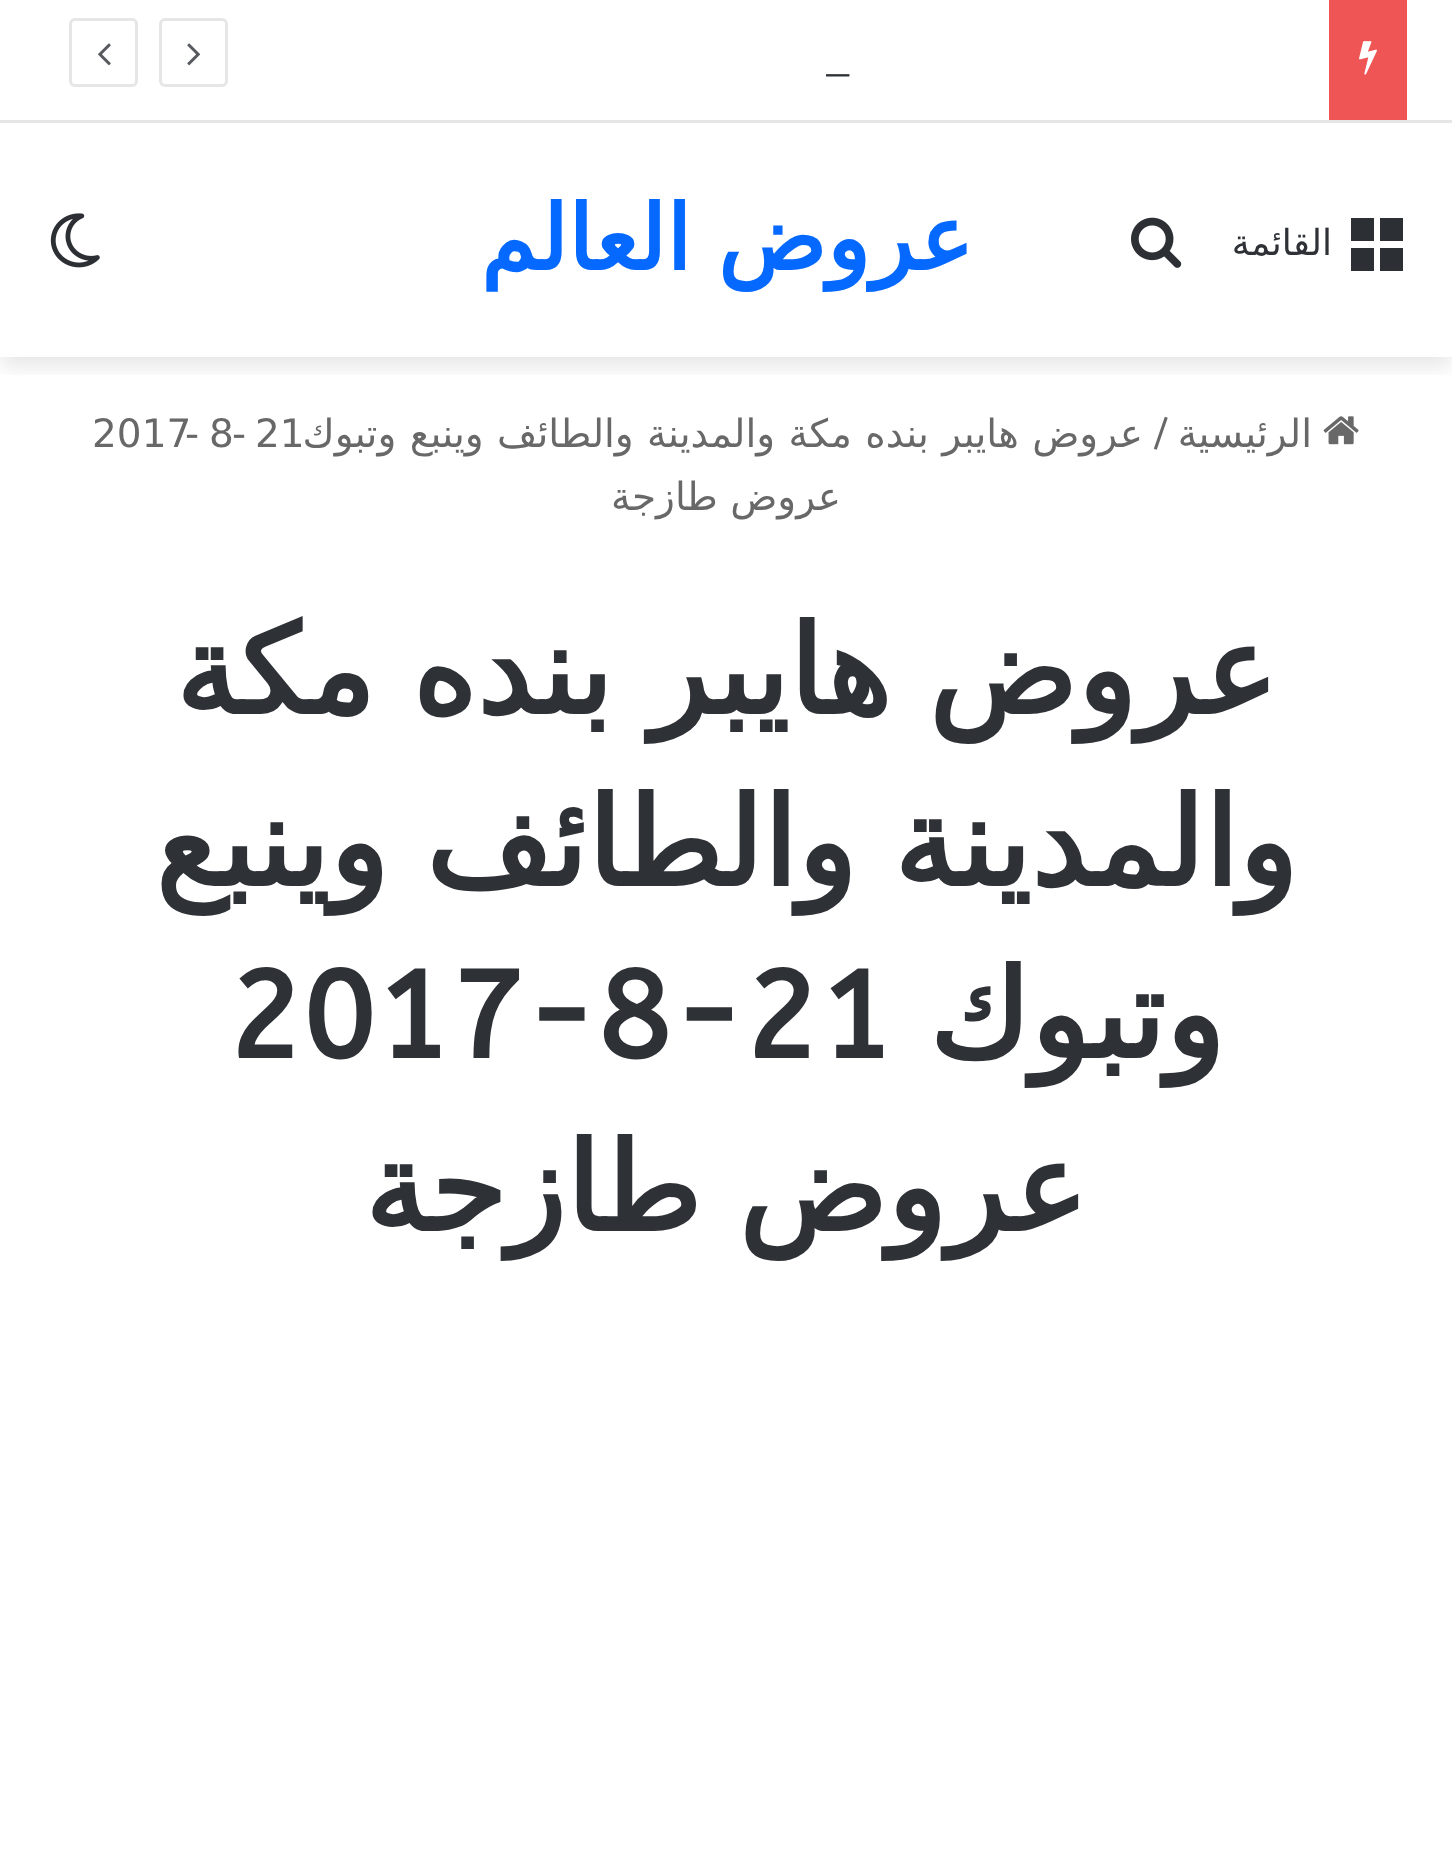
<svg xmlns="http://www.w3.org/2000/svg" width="1452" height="1855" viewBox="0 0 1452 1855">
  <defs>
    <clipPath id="clip1"><path d="M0 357h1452v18H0z"/></clipPath>
  </defs>
  <rect width="100%" height="100%" fill="#fff"/>
  <g clip-path="url(#clip1)">
    <path d="M0 132h1452v234H0z" fill="#0000001a" filter="blur(10.5px)"/>
  </g>
  <path d="M11 119h1430v1H11z" fill="#fff"/>
  <path d="M0 120h1452v3H0z" fill="#e6e6e6"/>
  <path d="M1329 0h78v120H1329z" fill="#f05555"/>
  <image x="1359" y="41" width="18" height="34" href="img/1.png"/>
  <path d="M222 85.5H165C162.5 85.5 160.5 83.5 160.5 81V24C160.5 21.5 162.5 19.5 165 19.5H222C224.5 19.5 226.5 21.5 226.5 24V81C226.5 83.5 224.5 85.5 222 85.5Z" fill="none" stroke="#e6e6e6" stroke-width="3"/>
  <image x="187" y="43" width="13" height="23" href="img/2.png"/>
  <path d="M132 85.5H75C72.5 85.5 70.5 83.5 70.5 81V24C70.5 21.5 72.5 19.5 75 19.5H132C134.5 19.5 136.5 21.5 136.5 24V81C136.5 83.5 134.5 85.5 132 85.5Z" fill="none" stroke="#e6e6e6" stroke-width="3"/>
  <image x="98" y="43" width="13" height="23" href="img/3.png"/>
  <path d="M1351 241H1374V218H1351ZM1380 218V241H1403V218ZM1380 271H1403V248H1380ZM1351 271H1374V248H1351Z" fill="#2c2f34"/>
  <image x="1131" y="217" width="51" height="51" href="img/4.png"/>
  <image x="50" y="213" width="50" height="55" href="img/5.png"/>
  <image x="1323" y="416" width="36" height="29" href="img/6.png"/>
  <text x="826" y="72" font-family="ABeeZee" font-size="39" fill="#2e3136">_</text>
  <text x="1332" y="255" font-family="DejaVu Sans" font-size="36" direction="rtl" fill="#2e3136">القائمة</text>
  <text x="973" y="270" word-spacing="-2" font-family="DejaVu Sans" font-size="90" font-weight="bold" direction="rtl" fill="#0669ff">عروض العالم</text>
  <text x="1312" y="447" font-family="DejaVu Sans" font-size="39" direction="rtl" fill="#686868">الرئيسية</text>
  <text x="1152" y="447" font-family="ABeeZee" font-size="39" fill="#686868">/</text>
  <text x="1143" y="447" word-spacing="1" font-family="DejaVu Sans" font-size="39" direction="rtl" fill="#686868">عروض هايبر بنده مكة والمدينة والطائف وينبع وتبوك</text>
  <g font-family="DejaVu Sans" font-size="39" fill="#686868">
    <text x="255" y="447">21</text>
    <text x="232" y="447">-</text>
    <text x="209" y="447">8</text>
    <text x="92" y="447">2017</text>
    <text x="185" y="447">-</text>
  </g>
  <text x="841" y="510" font-family="DejaVu Sans" font-size="39" direction="rtl" fill="#686868">عروض طازجة</text>
  <g font-family="DejaVu Sans" font-size="123" font-weight="bold" direction="rtl" fill="#2e3136">
    <text x="1277" y="714" word-spacing="-2">عروض هايبر بنده مكة</text>
    <text x="1297" y="886" word-spacing="-2">والمدينة والطائف وينبع</text>
    <text x="1224" y="1058">وتبوك</text>
  </g>
  <text x="228" y="1058" font-family="ABeeZee" font-size="123" font-weight="bold" fill="#2e3136">2017-8-21</text>
  <text x="1087" y="1231" word-spacing="-2" font-family="DejaVu Sans" font-size="123" font-weight="bold" direction="rtl" fill="#2e3136">عروض طازجة</text>
</svg>
